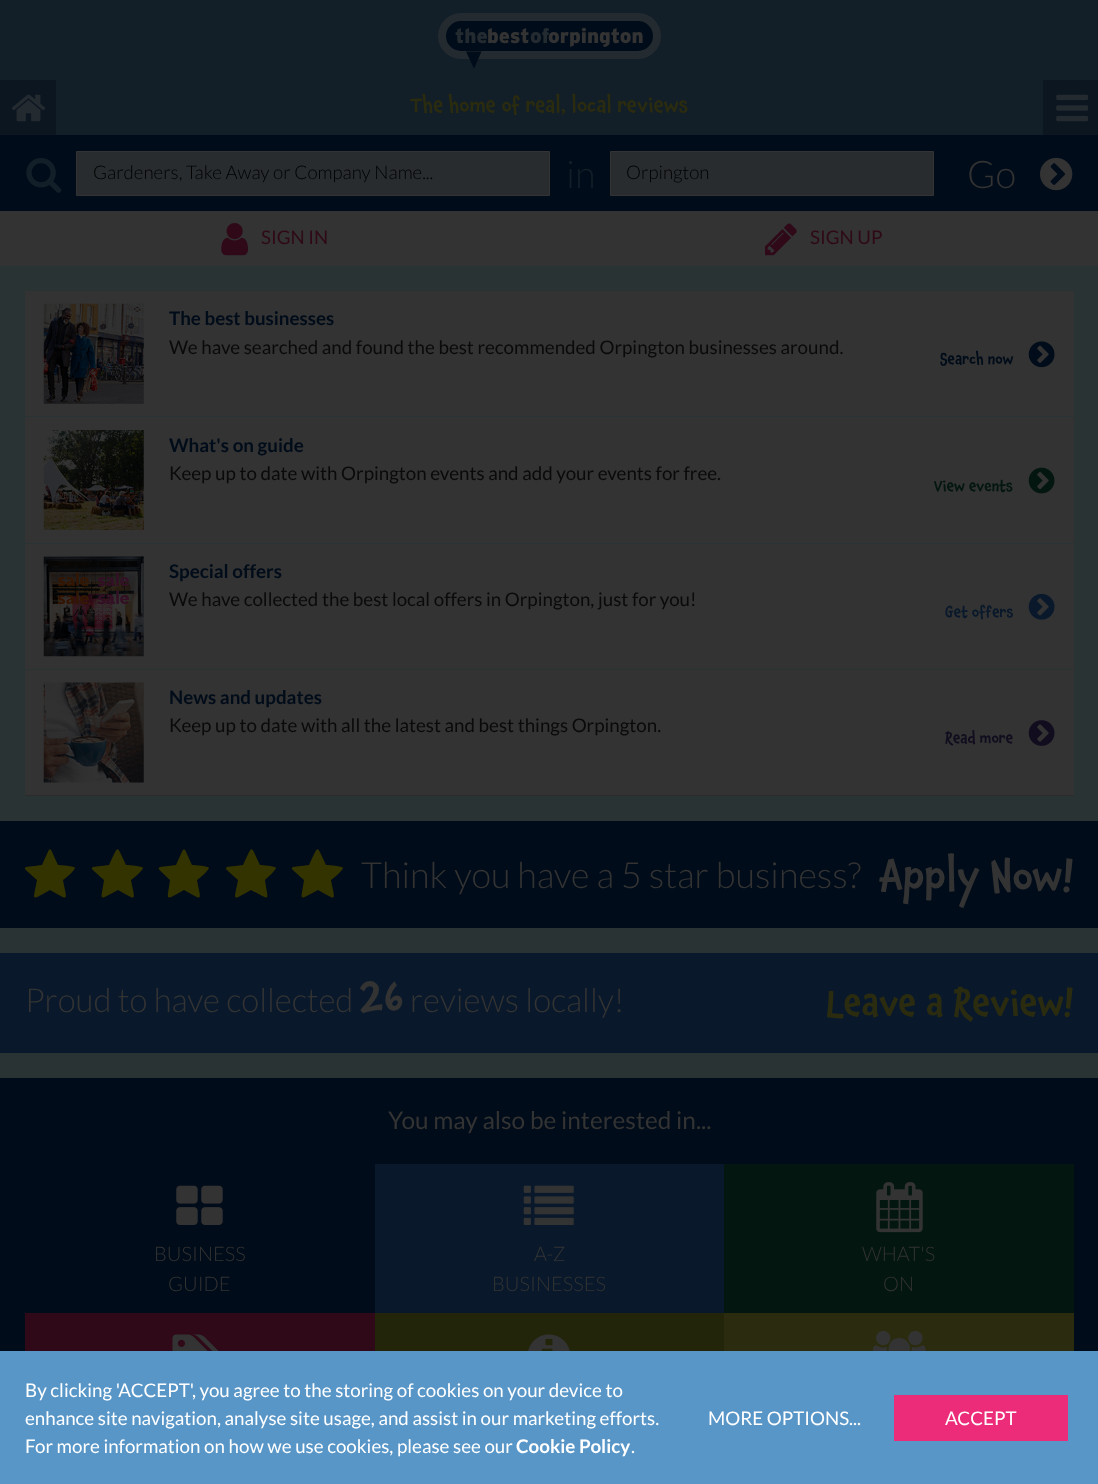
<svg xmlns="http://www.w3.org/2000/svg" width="1098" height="1484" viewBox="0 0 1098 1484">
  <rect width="100%" height="100%" fill="#293333"/>
  <path d="M0 0h1098v135H0z" fill="#121e28"/>
  <rect x="442" y="17" width="215" height="38" rx="19" fill="#000c19" stroke="#242b30" stroke-width="8"/>
  <path d="M466 51.5L474 68.5L481.5 51.5Z" fill="#000c19" fill-rule="evenodd"/>
  <path d="M0 80h56v55H0z" fill="#0c1620"/>
  <image x="11" y="94" width="35" height="28" href="img/1.png"/>
  <path d="M1043 80h55v55H1043z" fill="#0c1620"/>
  <image x="1056" y="94" width="33" height="28" href="img/2.png"/>
  <path d="M0 135h1098v76H0z" fill="#000c19"/>
  <image x="26" y="157" width="36" height="36" href="img/3.png"/>
  <path d="M76.5 151.5h473v44H76.5z" fill="#282c2f" stroke="#333"/>
  <path d="M610.5 151.5h323v44H610.5z" fill="#282c2f" stroke="#333"/>
  <image x="1040" y="157" width="33" height="34" href="img/4.png"/>
  <path d="M0 211h1098v55H0z" fill="#333"/>
  <image x="221" y="223" width="27" height="33" href="img/5.png"/>
  <image x="765" y="223" width="32" height="33" href="img/6.png"/>
  <path d="M25 291h1049v504H25z" fill="#333"/>
  <path d="M25 795h1049v1H25z" fill="#2c2c2c"/>
  <path d="M25 416h1049v1H25z" fill="#293333"/>
  <image x="43" y="303" width="101" height="101" href="img/7.png"/>
  <image x="1028" y="341" width="27" height="27" href="img/8.png"/>
  <path d="M25 543h1049v1H25z" fill="#293333"/>
  <image x="43" y="430" width="101" height="100" href="img/9.png"/>
  <image x="1028" y="467" width="27" height="27" href="img/10.png"/>
  <path d="M25 669h1049v1H25z" fill="#293333"/>
  <image x="43" y="556" width="101" height="101" href="img/11.png"/>
  <image x="1028" y="593" width="27" height="27" href="img/12.png"/>
  <image x="43" y="682" width="101" height="101" href="img/13.png"/>
  <image x="1028" y="720" width="27" height="26" href="img/14.png"/>
  <path d="M0 821h1098v107H0z" fill="#000c19"/>
  <path d="M75 868C75 870 65 879 63 880C67 902 70 901 50 890C30 901 33 902 37 880C21 865 19 868 42 865C52 844 48 844 58 865C61 865 75 866 75 868Z" fill="#330"/>
  <path d="M143 868C143 870 133 879 131 880C135 902 138 901 118 890C97 901 101 902 104 880C88 865 86 868 109 865C119 844 116 844 126 865C128 865 143 866 143 868Z" fill="#330"/>
  <path d="M209 868C209 870 199 879 197 880C201 902 204 901 184 890C164 901 167 902 170 880C155 865 153 868 176 865C186 844 182 844 192 865C195 865 209 866 209 868Z" fill="#330"/>
  <path d="M276 868C276 870 266 879 265 880C268 902 272 901 251 890C231 901 234 902 238 880C222 865 220 868 243 865C253 844 250 844 260 865C262 865 276 866 276 868Z" fill="#330"/>
  <path d="M343 868C343 870 333 879 331 880C335 902 338 901 318 890C297 901 301 902 304 880C288 865 286 868 309 865C319 844 316 844 326 865C328 865 343 866 343 868Z" fill="#330"/>
  <path d="M0 953h1098v100H0z" fill="#09192b"/>
  <path d="M0 1078h1098v273H0z" fill="#000c19"/>
  <image x="176" y="1185" width="47" height="40" href="img/15.png"/>
  <path d="M375 1164h349v149H375z" fill="#09192b"/>
  <image x="523" y="1185" width="51" height="40" href="img/16.png"/>
  <path d="M724 1164h350v149H724z" fill="#031610"/>
  <image x="876" y="1182" width="47" height="51" href="img/17.png"/>
  <path d="M25 1313h350v38H25z" fill="#2f0918"/>
  <image x="172" y="1334" width="47" height="17" href="img/18.png"/>
  <path d="M375 1313h349v38H375z" fill="#23250a"/>
  <image x="528" y="1334" width="42" height="17" href="img/19.png"/>
  <path d="M724 1313h350v38H724z" fill="#2b2c0f"/>
  <image x="872" y="1330" width="54" height="21" href="img/20.png"/>
  <path d="M0 1351h1098v133H0z" fill="#5896c8"/>
  <path d="M894 1395h174v46H894z" fill="#ec2b79"/>
  <text x="455" y="43" font-family="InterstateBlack" font-size="20.6" font-weight="900" fill="#242b30">the</text>
  <text x="487" y="43" font-family="InterstateBlack" font-size="20.6" font-weight="900" fill="#333">best</text>
  <text x="530" y="43" font-family="InterstateBlack" font-size="20.6" font-weight="900" fill="#242b30">of</text>
  <text x="548" y="43" font-family="InterstateBlack" font-size="20.6" font-weight="900" fill="#333">orpington</text>
  <text x="410" y="112" font-family="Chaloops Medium" font-size="20.6" font-weight="500" fill="#2b2c0f">The home of real, local reviews</text>
  <text x="93" y="179" font-family="Lato" font-size="18.75" font-weight="300" fill="#000">Gardeners, Take Away or Company Name...</text>
  <text x="566" y="188" font-family="Lato" font-size="38" font-weight="300" fill="#121e28">in</text>
  <text x="626" y="179" font-family="Lato" font-size="18.75" font-weight="300" fill="#000">Orpington</text>
  <text x="967" y="188" font-family="Lato" font-size="38" font-weight="300" fill="#333">Go</text>
  <g font-family="Lato" font-size="18.75" fill="#2f0918">
    <text x="261" y="244">SIGN IN</text>
    <text x="810" y="244">SIGN UP</text>
  </g>
  <text x="169" y="325" font-family="Lato" font-size="18.75" font-weight="bold" fill="#000c19">The best businesses</text>
  <text x="169" y="354" font-family="Lato" font-size="18.75" fill="#0a0a0a">We have searched and found the best recommended Orpington businesses around.</text>
  <text x="940" y="364" font-family="Chaloops Medium" font-size="15" font-weight="500" fill="#000c19">Search now</text>
  <text x="169" y="452" font-family="Lato" font-size="18.75" font-weight="bold" fill="#000c19">What's on guide</text>
  <text x="169" y="480" font-family="Lato" font-size="18.75" fill="#0a0a0a">Keep up to date with Orpington events and add your events for free.</text>
  <text x="934" y="491" font-family="Chaloops Medium" font-size="15" font-weight="500" fill="#031610">View events</text>
  <text x="169" y="578" font-family="Lato" font-size="18.75" font-weight="bold" fill="#000c19">Special offers</text>
  <text x="169" y="606" font-family="Lato" font-size="18.75" fill="#0a0a0a">We have collected the best local offers in Orpington, just for you!</text>
  <text x="945" y="617" font-family="Chaloops Medium" font-size="15" font-weight="500" fill="#09192b">Get offers</text>
  <text x="169" y="704" font-family="Lato" font-size="18.75" font-weight="bold" fill="#000c19">News and updates</text>
  <text x="169" y="732" font-family="Lato" font-size="18.75" fill="#0a0a0a">Keep up to date with all the latest and best things Orpington.</text>
  <text x="945" y="743" font-family="Chaloops Medium" font-size="15" font-weight="500" fill="#120d1e">Read more</text>
  <text x="361" y="888" font-family="Lato" font-size="36" font-weight="300" fill="#333">Think you have a 5 star business?</text>
  <text x="880" y="890" font-family="Chaloops Medium" font-size="41.5" font-weight="500" fill="#333">Apply Now!</text>
  <text x="25" y="1012" font-family="Lato" font-size="33" font-weight="300" fill="#333">Proud to have collected</text>
  <text x="359" y="1012" font-family="Chaloops Medium" font-size="46" font-weight="500" fill="#333">26</text>
  <text x="410" y="1012" font-family="Lato" font-size="33" font-weight="300" fill="#333">reviews locally!</text>
  <text x="826" y="1015" font-family="Chaloops Medium" font-size="36.25" font-weight="500" fill="#2b2c0f">Leave a Review!</text>
  <text x="388" y="1129" font-family="Lato" font-size="24.4" fill="#333">You may also be interested in...</text>
  <g font-family="Lato" font-size="20" font-weight="300" fill="#333">
    <text x="154" y="1261">BUSINESS</text>
    <text x="168" y="1291">GUIDE</text>
    <text x="534" y="1261">A-Z</text>
    <text x="492" y="1291">BUSINESSES</text>
    <text x="862" y="1261">WHAT'S</text>
    <text x="883" y="1291">ON</text>
  </g>
  <g font-family="Lato" font-size="18.75" fill="#fff">
    <text x="25" y="1397">By clicking 'ACCEPT', you agree to the storing of cookies on your device to</text>
    <text x="25" y="1425">enhance site navigation, analyse site usage, and assist in our marketing efforts.</text>
    <text x="25" y="1453">For more information on how we use cookies, please see our</text>
  </g>
  <text x="516" y="1453" font-family="Lato" font-size="18.75" font-weight="bold" fill="#fff">Cookie Policy</text>
  <g font-family="Lato" font-size="18.75" fill="#fff">
    <text x="631" y="1453">.</text>
    <text x="708" y="1425">MORE OPTIONS...</text>
    <text x="945" y="1425">ACCEPT</text>
  </g>
</svg>
